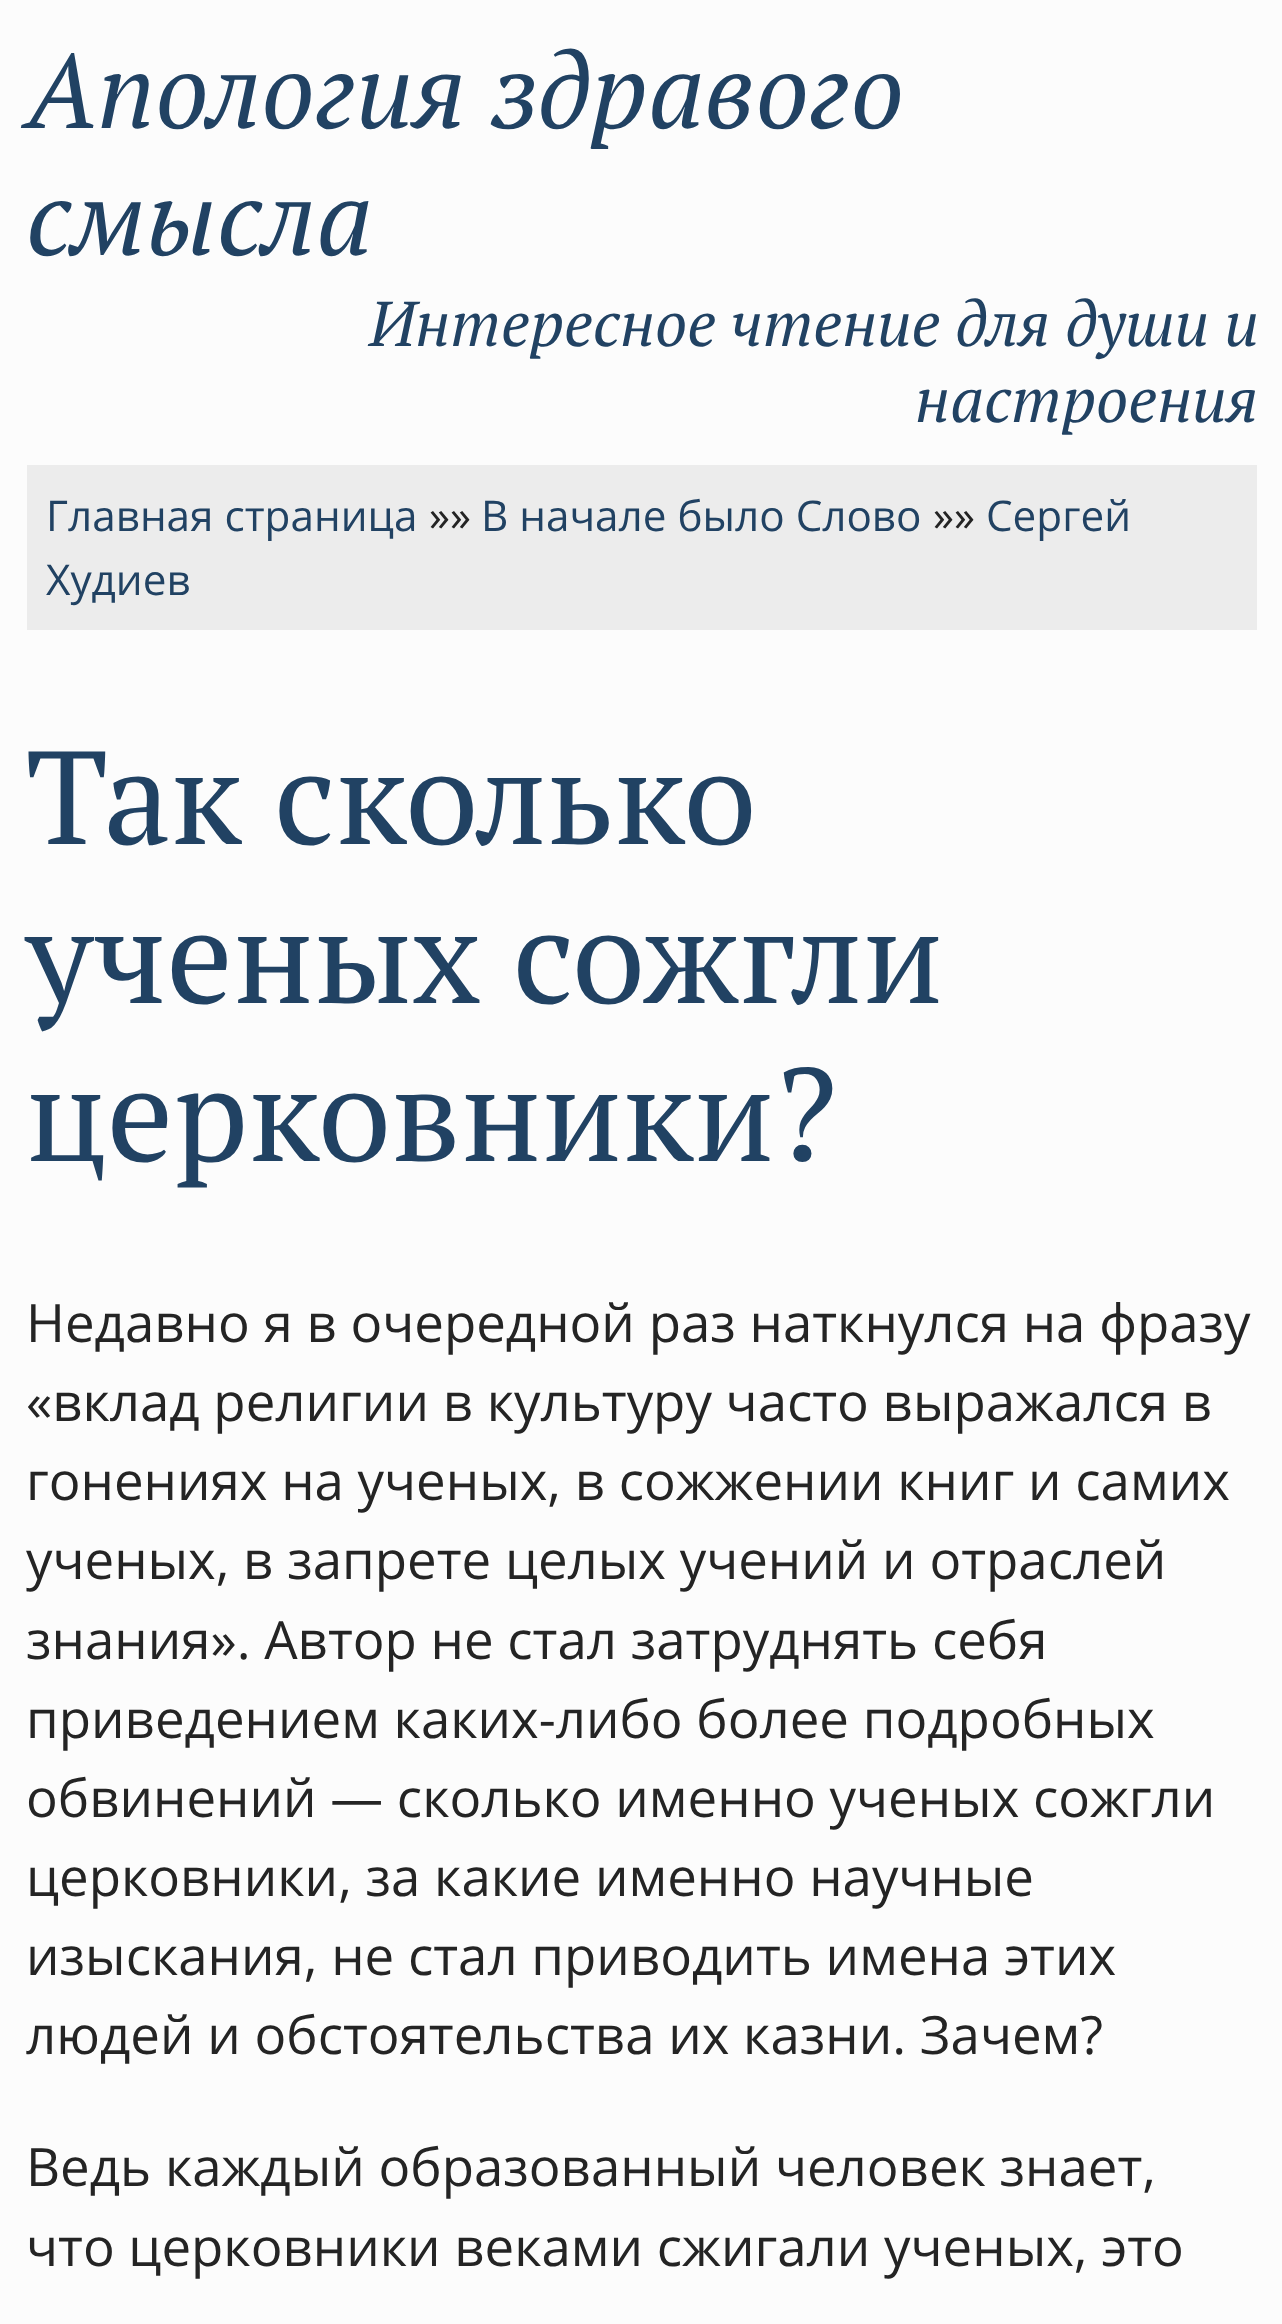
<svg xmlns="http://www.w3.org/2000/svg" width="1282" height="2324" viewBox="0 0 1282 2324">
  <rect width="100%" height="100%" fill="#fcfcfc"/>
  <path d="M27 465h1230v165H27z" fill="#ececec"/>
  <g font-family="PT Serif" font-size="105.5" font-style="italic" fill="#214263">
    <text x="26" y="128">Апология здравого</text>
    <text x="26" y="255">смысла</text>
  </g>
  <g font-family="PT Serif" font-size="63.4" font-style="italic" fill="#214263">
    <text x="369" y="346">Интересное чтение для души и</text>
    <text x="915" y="422">настроения</text>
  </g>
  <text x="46" y="531" font-family="Open Sans" font-size="42.25" fill="#214263">Главная страница</text>
  <text x="429" y="531" font-family="Open Sans" font-size="42.25" fill="#242424">»»</text>
  <text x="481" y="531" font-family="Open Sans" font-size="42.25" fill="#214263">В начале было Слово</text>
  <text x="933" y="531" font-family="Open Sans" font-size="42.25" fill="#242424">»»</text>
  <g font-family="Open Sans" font-size="42.25" fill="#214263">
    <text x="986" y="531">Сергей</text>
    <text x="46" y="595">Худиев</text>
  </g>
  <g font-family="PT Serif" font-size="132" fill="#214263">
    <text x="26" y="844">Так сколько</text>
    <text x="26" y="1003">ученых сожгли</text>
    <text x="26" y="1161">церковники?</text>
  </g>
  <g font-family="Open Sans" font-size="52.8" fill="#242424">
    <text x="26" y="1342">Недавно я в очередной раз наткнулся на фразу</text>
    <text x="26" y="1421">«вклад религии в культуру часто выражался в</text>
    <text x="26" y="1500">гонениях на ученых, в сожжении книг и самих</text>
    <text x="26" y="1579">ученых, в запрете целых учений и отраслей</text>
    <text x="26" y="1659">знания». Автор не стал затруднять себя</text>
    <text x="26" y="1738">приведением каких-либо более подробных</text>
    <text x="26" y="1817">обвинений — сколько именно ученых сожгли</text>
    <text x="26" y="1896">церковники, за какие именно научные</text>
    <text x="26" y="1975">изыскания, не стал приводить имена этих</text>
    <text x="26" y="2054">людей и обстоятельства их казни. Зачем?</text>
    <text x="26" y="2186">Ведь каждый образованный человек знает,</text>
    <text x="26" y="2266">что церковники веками сжигали ученых, это</text>
  </g>
</svg>
